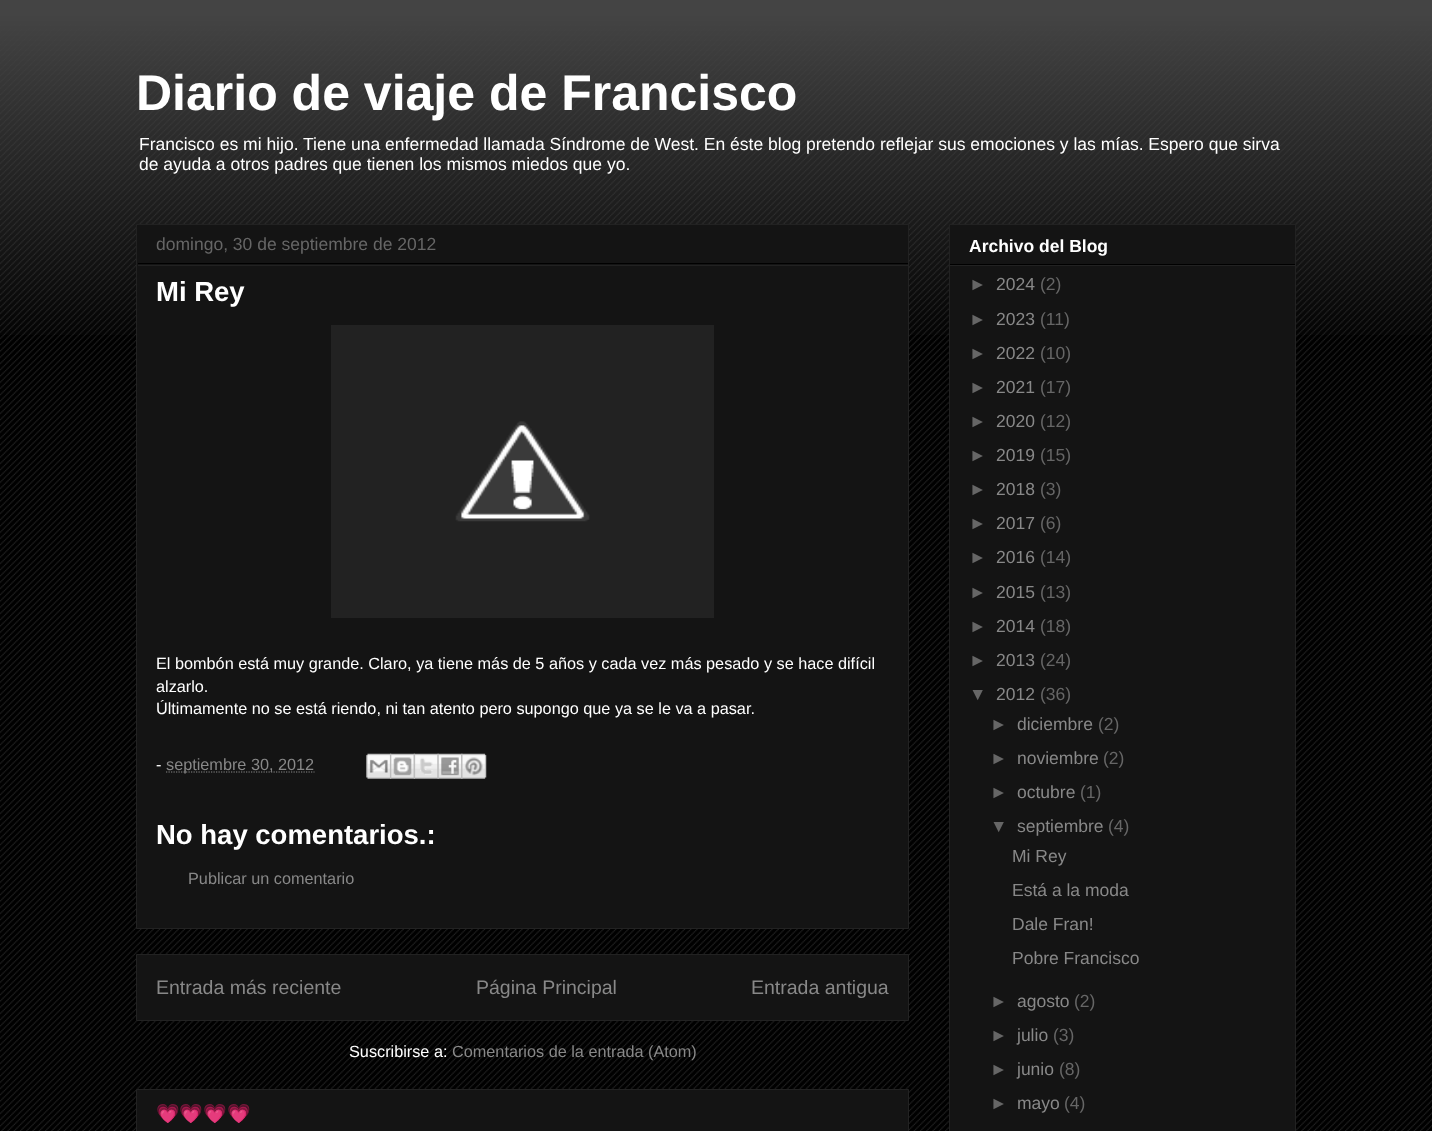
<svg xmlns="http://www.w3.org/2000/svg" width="1432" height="1131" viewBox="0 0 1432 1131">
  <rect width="100%" height="100%" fill="#000"/>
  <image x="0" y="16" width="1432" height="1115" href="img/1.png"/>
  <image x="0" y="0" width="1432" height="335" href="img/2.png"/>
  <path d="M136.5 224.5h772v704H136.5z" fill="#141414" stroke="#222"/>
  <path d="M138 263h770v1H138z" fill="#000"/>
  <path d="M138 265h770v1H138z" fill="#222"/>
  <path d="M331 325h383v293H331z" fill="#222"/>
  <image x="455" y="421" width="135" height="101" href="img/3.png"/>
  <path d="M166 772H314.5" fill="none" stroke="#888" stroke-width="1.2" stroke-dasharray="1.25 1.25"/>
  <image x="366" y="753" width="26" height="26" href="img/4.png"/>
  <image x="390" y="753" width="25" height="26" href="img/5.png"/>
  <image x="413" y="753" width="26" height="26" href="img/6.png"/>
  <image x="437" y="753" width="26" height="26" href="img/7.png"/>
  <image x="461" y="753" width="26" height="26" href="img/8.png"/>
  <path d="M136.5 954.5h772v66H136.5z" fill="#141414" stroke="#222"/>
  <path d="M136.5 1089.5h772v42H136.5z" fill="#141414" stroke="#222"/>
  <path d="M949.5 224.5h346v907H949.5z" fill="#141414" stroke="#222"/>
  <path d="M950 264h345v1H950z" fill="#000"/>
  <path d="M950 265h345v1H950z" fill="#222"/>
  <text x="136" y="110" font-family="Liberation Sans" font-size="50" font-weight="bold" fill="#fff">Diario de viaje de Francisco</text>
  <g font-family="Liberation Sans" font-size="17.5" fill="#fff">
    <text x="139" y="150">Francisco es mi hijo. Tiene una enfermedad llamada Síndrome de West. En éste blog pretendo reflejar sus emociones y las mías. Espero que sirva</text>
    <text x="139" y="170">de ayuda a otros padres que tienen los mismos miedos que yo.</text>
  </g>
  <text x="156" y="250" font-family="Liberation Sans" font-size="17.5" fill="#666">domingo, 30 de septiembre de 2012</text>
  <text x="156" y="301" font-family="Liberation Sans" font-size="27.5" font-weight="bold" fill="#fff">Mi Rey</text>
  <g font-family="Liberation Sans" font-size="16.25" fill="#fff">
    <text x="156" y="669">El bombón está muy grande. Claro, ya tiene más de 5 años y cada vez más pesado y se hace difícil</text>
    <text x="156" y="692">alzarlo.</text>
    <text x="156" y="714">Últimamente no se está riendo, ni tan atento pero supongo que ya se le va a pasar.</text>
    <text x="156" y="770">-</text>
  </g>
  <text x="166" y="770" font-family="Liberation Sans" font-size="16.25" fill="#888">septiembre 30, 2012</text>
  <text x="156" y="844" font-family="Liberation Sans" font-size="27.5" font-weight="bold" fill="#fff">No hay comentarios.:</text>
  <text x="188" y="884" font-family="Liberation Sans" font-size="16.25" fill="#888">Publicar un comentario</text>
  <g font-family="Liberation Sans" font-size="19.5" fill="#888">
    <text x="156" y="994">Entrada más reciente</text>
    <text x="476" y="994">Página Principal</text>
    <text x="751" y="994">Entrada antigua</text>
  </g>
  <text x="349" y="1057" font-family="Liberation Sans" font-size="16.25" fill="#fff">Suscribirse a:</text>
  <text x="452" y="1057" font-family="Liberation Sans" font-size="16.25" fill="#888">Comentarios de la entrada (Atom)</text>
  <text x="156" y="1120" font-family="Noto Color Emoji" font-size="19" font-weight="bold" fill="#888">💗💗💗💗</text>
  <text x="969" y="252" font-family="Liberation Sans" font-size="17.5" font-weight="bold" fill="#fff">Archivo del Blog</text>
  <text x="969" y="290" font-family="Liberation Sans" font-size="17.5" fill="#666">►</text>
  <text x="996" y="290" font-family="Liberation Sans" font-size="17.5" fill="#888">2024</text>
  <g font-family="Liberation Sans" font-size="17.5" fill="#666">
    <text x="1040" y="290">(2)</text>
    <text x="969" y="325">►</text>
  </g>
  <text x="996" y="325" font-family="Liberation Sans" font-size="17.5" fill="#888">2023</text>
  <g font-family="Liberation Sans" font-size="17.5" fill="#666">
    <text x="1040" y="325">(11)</text>
    <text x="969" y="359">►</text>
  </g>
  <text x="996" y="359" font-family="Liberation Sans" font-size="17.5" fill="#888">2022</text>
  <g font-family="Liberation Sans" font-size="17.5" fill="#666">
    <text x="1040" y="359">(10)</text>
    <text x="969" y="393">►</text>
  </g>
  <text x="996" y="393" font-family="Liberation Sans" font-size="17.5" fill="#888">2021</text>
  <g font-family="Liberation Sans" font-size="17.5" fill="#666">
    <text x="1040" y="393">(17)</text>
    <text x="969" y="427">►</text>
  </g>
  <text x="996" y="427" font-family="Liberation Sans" font-size="17.5" fill="#888">2020</text>
  <g font-family="Liberation Sans" font-size="17.5" fill="#666">
    <text x="1040" y="427">(12)</text>
    <text x="969" y="461">►</text>
  </g>
  <text x="996" y="461" font-family="Liberation Sans" font-size="17.5" fill="#888">2019</text>
  <g font-family="Liberation Sans" font-size="17.5" fill="#666">
    <text x="1040" y="461">(15)</text>
    <text x="969" y="495">►</text>
  </g>
  <text x="996" y="495" font-family="Liberation Sans" font-size="17.5" fill="#888">2018</text>
  <g font-family="Liberation Sans" font-size="17.5" fill="#666">
    <text x="1040" y="495">(3)</text>
    <text x="969" y="529">►</text>
  </g>
  <text x="996" y="529" font-family="Liberation Sans" font-size="17.5" fill="#888">2017</text>
  <g font-family="Liberation Sans" font-size="17.5" fill="#666">
    <text x="1040" y="529">(6)</text>
    <text x="969" y="563">►</text>
  </g>
  <text x="996" y="563" font-family="Liberation Sans" font-size="17.5" fill="#888">2016</text>
  <g font-family="Liberation Sans" font-size="17.5" fill="#666">
    <text x="1040" y="563">(14)</text>
    <text x="969" y="598">►</text>
  </g>
  <text x="996" y="598" font-family="Liberation Sans" font-size="17.5" fill="#888">2015</text>
  <g font-family="Liberation Sans" font-size="17.5" fill="#666">
    <text x="1040" y="598">(13)</text>
    <text x="969" y="632">►</text>
  </g>
  <text x="996" y="632" font-family="Liberation Sans" font-size="17.5" fill="#888">2014</text>
  <g font-family="Liberation Sans" font-size="17.5" fill="#666">
    <text x="1040" y="632">(18)</text>
    <text x="969" y="666">►</text>
  </g>
  <text x="996" y="666" font-family="Liberation Sans" font-size="17.5" fill="#888">2013</text>
  <g font-family="Liberation Sans" font-size="17.5" fill="#666">
    <text x="1040" y="666">(24)</text>
    <text x="969" y="700">▼</text>
  </g>
  <text x="996" y="700" font-family="Liberation Sans" font-size="17.5" fill="#888">2012</text>
  <g font-family="Liberation Sans" font-size="17.5" fill="#666">
    <text x="1040" y="700">(36)</text>
    <text x="990" y="730">►</text>
  </g>
  <text x="1017" y="730" font-family="Liberation Sans" font-size="17.5" fill="#888">diciembre</text>
  <g font-family="Liberation Sans" font-size="17.5" fill="#666">
    <text x="1098" y="730">(2)</text>
    <text x="990" y="764">►</text>
  </g>
  <text x="1017" y="764" font-family="Liberation Sans" font-size="17.5" fill="#888">noviembre</text>
  <g font-family="Liberation Sans" font-size="17.5" fill="#666">
    <text x="1103" y="764">(2)</text>
    <text x="990" y="798">►</text>
  </g>
  <text x="1017" y="798" font-family="Liberation Sans" font-size="17.5" fill="#888">octubre</text>
  <g font-family="Liberation Sans" font-size="17.5" fill="#666">
    <text x="1080" y="798">(1)</text>
    <text x="990" y="832">▼</text>
  </g>
  <text x="1017" y="832" font-family="Liberation Sans" font-size="17.5" fill="#888">septiembre</text>
  <text x="1108" y="832" font-family="Liberation Sans" font-size="17.5" fill="#666">(4)</text>
  <g font-family="Liberation Sans" font-size="17.5" fill="#888">
    <text x="1012" y="862">Mi Rey</text>
    <text x="1012" y="896">Está a la moda</text>
    <text x="1012" y="930">Dale Fran!</text>
    <text x="1012" y="964">Pobre Francisco</text>
  </g>
  <text x="990" y="1007" font-family="Liberation Sans" font-size="17.5" fill="#666">►</text>
  <text x="1017" y="1007" font-family="Liberation Sans" font-size="17.5" fill="#888">agosto</text>
  <g font-family="Liberation Sans" font-size="17.5" fill="#666">
    <text x="1074" y="1007">(2)</text>
    <text x="990" y="1041">►</text>
  </g>
  <text x="1017" y="1041" font-family="Liberation Sans" font-size="17.5" fill="#888">julio</text>
  <g font-family="Liberation Sans" font-size="17.5" fill="#666">
    <text x="1053" y="1041">(3)</text>
    <text x="990" y="1075">►</text>
  </g>
  <text x="1017" y="1075" font-family="Liberation Sans" font-size="17.5" fill="#888">junio</text>
  <g font-family="Liberation Sans" font-size="17.5" fill="#666">
    <text x="1059" y="1075">(8)</text>
    <text x="990" y="1109">►</text>
  </g>
  <text x="1017" y="1109" font-family="Liberation Sans" font-size="17.5" fill="#888">mayo</text>
  <text x="1064" y="1109" font-family="Liberation Sans" font-size="17.5" fill="#666">(4)</text>
</svg>
